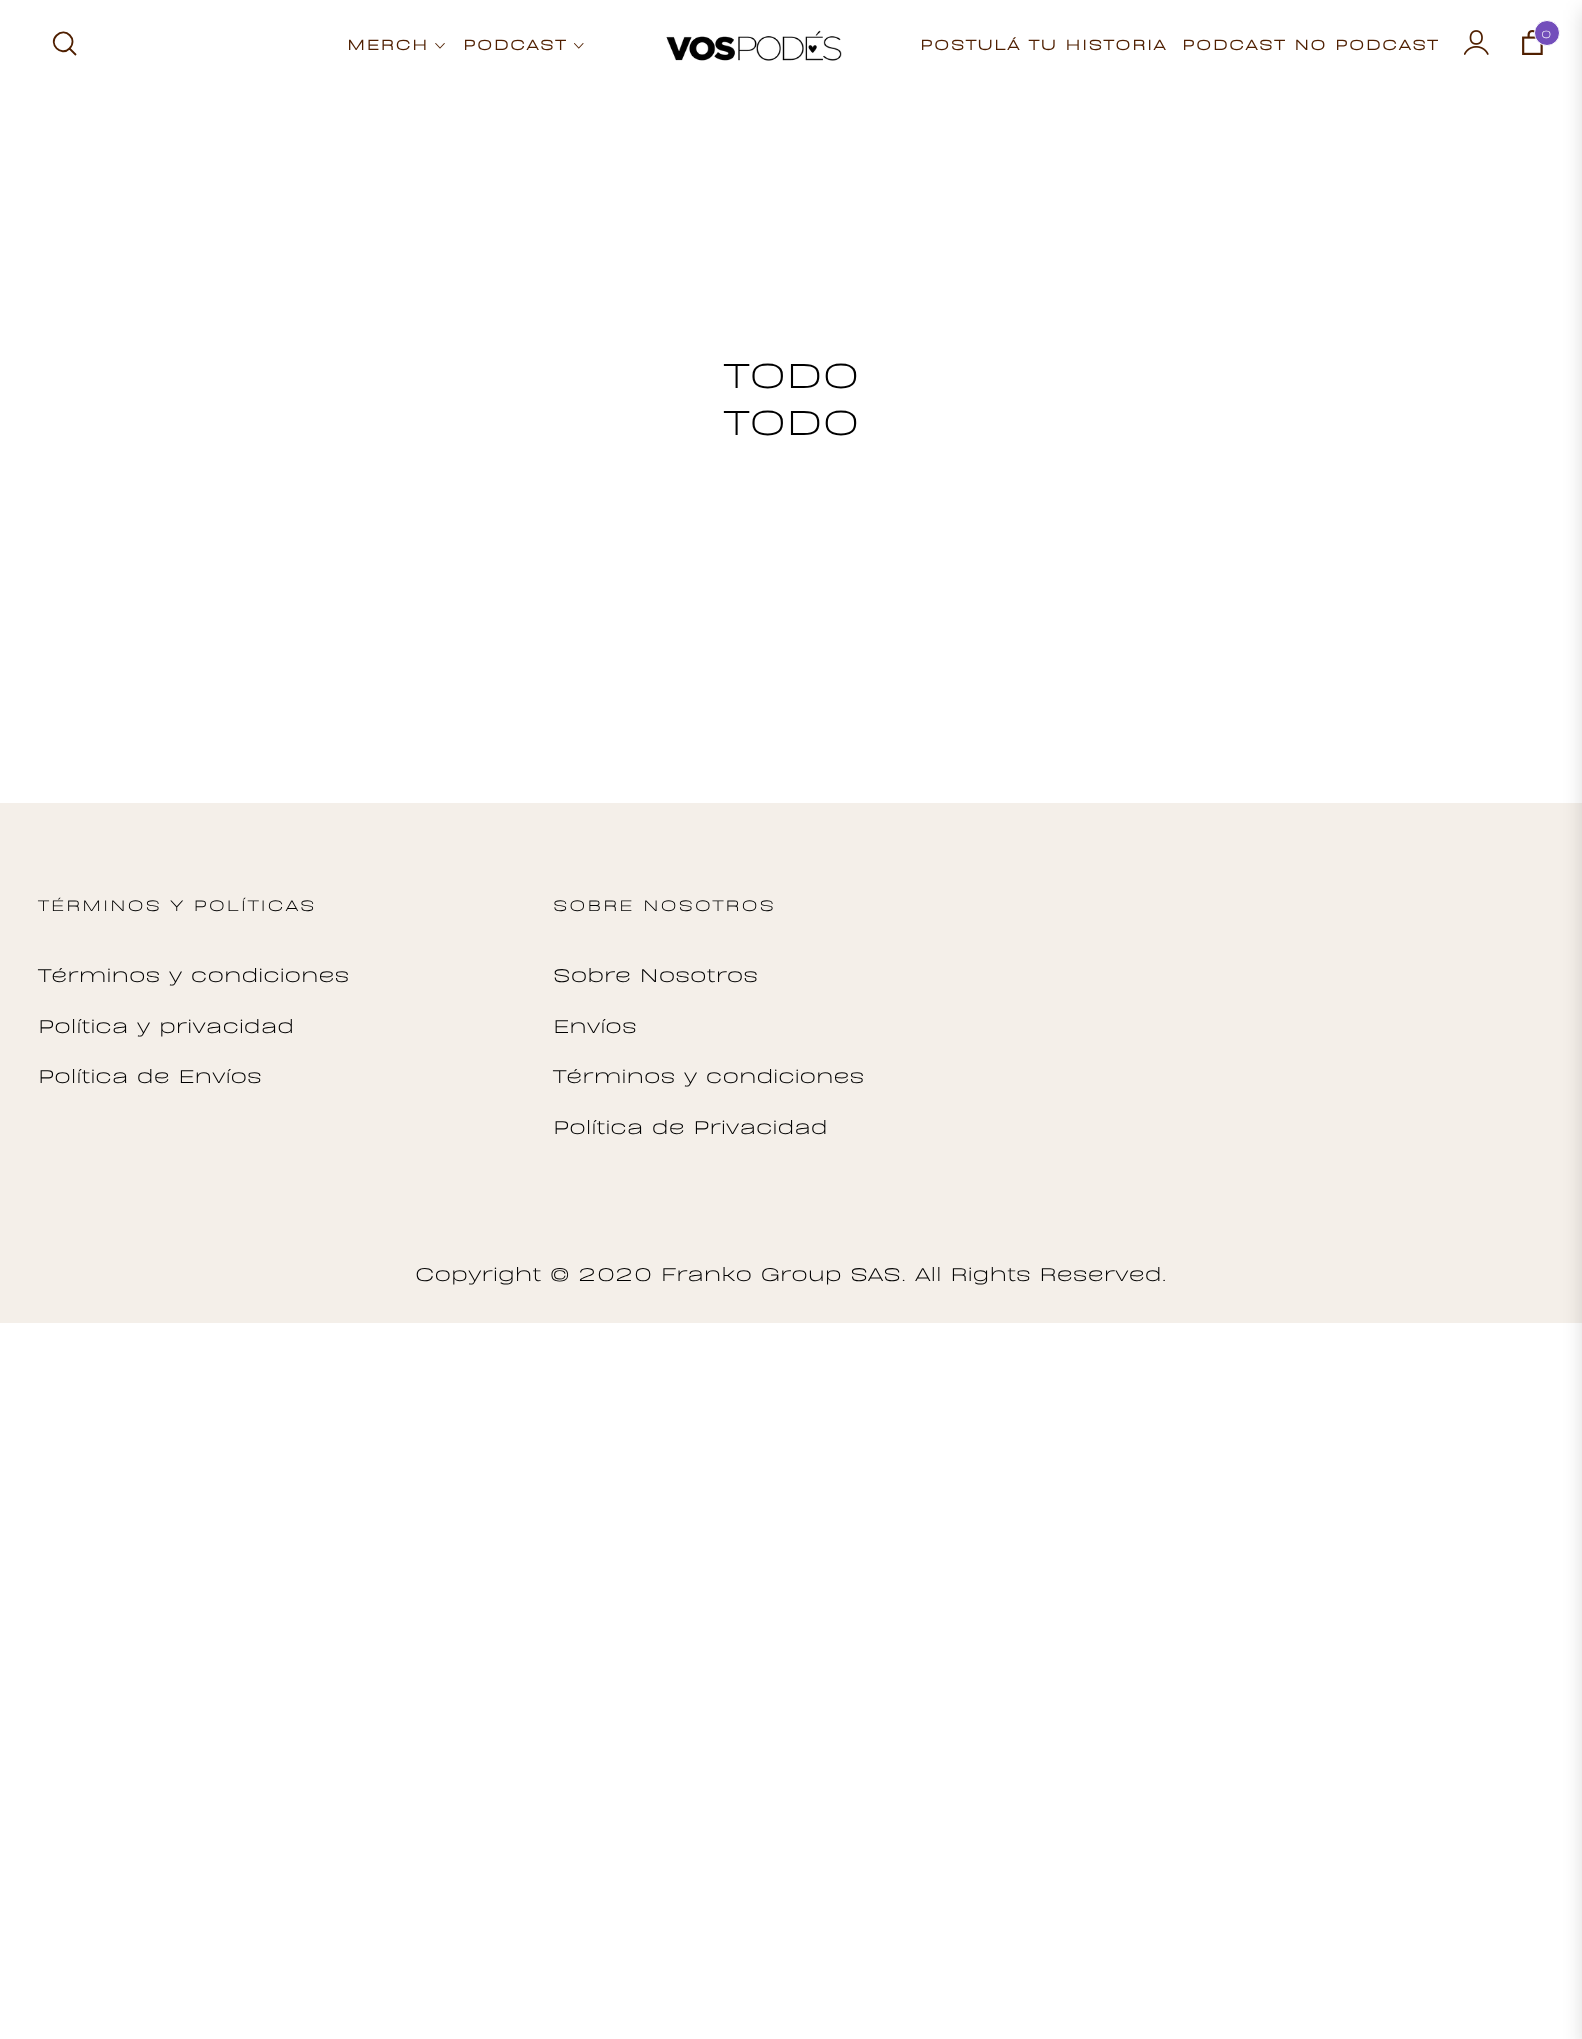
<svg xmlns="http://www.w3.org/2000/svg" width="1582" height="2039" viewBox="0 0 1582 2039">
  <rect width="100%" height="100%" fill="#fff"/>
  <path d="M69.5 48.5C78.5 39.5 65.5 26.5 56.5 35.5C48 44 61 57 69.5 48.5ZM69.5 48.5L76 55" fill="none" stroke="#4f1f00" stroke-width="1.8"/>
  <image x="435" y="43" width="10" height="6" href="img/1.png"/>
  <image x="574" y="43" width="10" height="6" href="img/2.png"/>
  <image x="666" y="30" width="176" height="31" href="img/3.png"/>
  <image x="1464" y="30" width="25" height="25" href="img/4.png"/>
  <image x="1522" y="30" width="21" height="25" href="img/5.png"/>
  <circle cx="1547" cy="33" r="12.5" fill="#734ebb" stroke="#fff"/>
  <path d="M0 803h1582v520H0z" fill="#f4efe9"/>
  <path d="M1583 10h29v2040H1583z" fill="#00000026" filter="blur(10px)"/>
  <g font-family="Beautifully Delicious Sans" font-size="16.25" font-weight="bold" letter-spacing="1.6" fill="#4f1f00">
    <text x="347" y="50">MERCH</text>
    <text x="463" y="50">PODCAST</text>
  </g>
  <text x="1541" y="38" font-family="Beautifully Delicious Sans" font-size="12" fill="#fff">0</text>
  <g font-family="Beautifully Delicious Sans" font-size="16.25" font-weight="bold" letter-spacing="1.6" fill="#4f1f00">
    <text x="920" y="50">POSTULÁ TU HISTORIA</text>
    <text x="1182" y="50">PODCAST NO PODCAST</text>
  </g>
  <g font-family="Beautifully Delicious Sans" font-size="40" fill="#000">
    <text x="724" y="388">TODO</text>
    <text x="724" y="435">TODO</text>
  </g>
  <text x="38" y="911" font-family="Beautifully Delicious Sans" font-size="17.5" letter-spacing="1.75" fill="#000">TÉRMINOS Y POLÍTICAS</text>
  <g font-family="Beautifully Delicious Sans" font-size="21.25" fill="#000">
    <text x="38" y="982">Términos y condiciones</text>
    <text x="38" y="1033">Política y privacidad</text>
    <text x="38" y="1083">Política de Envíos</text>
  </g>
  <text x="553" y="911" font-family="Beautifully Delicious Sans" font-size="17.5" letter-spacing="1.75" fill="#000">SOBRE NOSOTROS</text>
  <g font-family="Beautifully Delicious Sans" font-size="21.25" fill="#000">
    <text x="553" y="982">Sobre Nosotros</text>
    <text x="553" y="1033">Envíos</text>
    <text x="553" y="1083">Términos y condiciones</text>
    <text x="553" y="1134">Política de Privacidad</text>
    <text x="415" y="1281">Copyright © 2020 Franko Group SAS. All Rights Reserved.</text>
  </g>
</svg>
